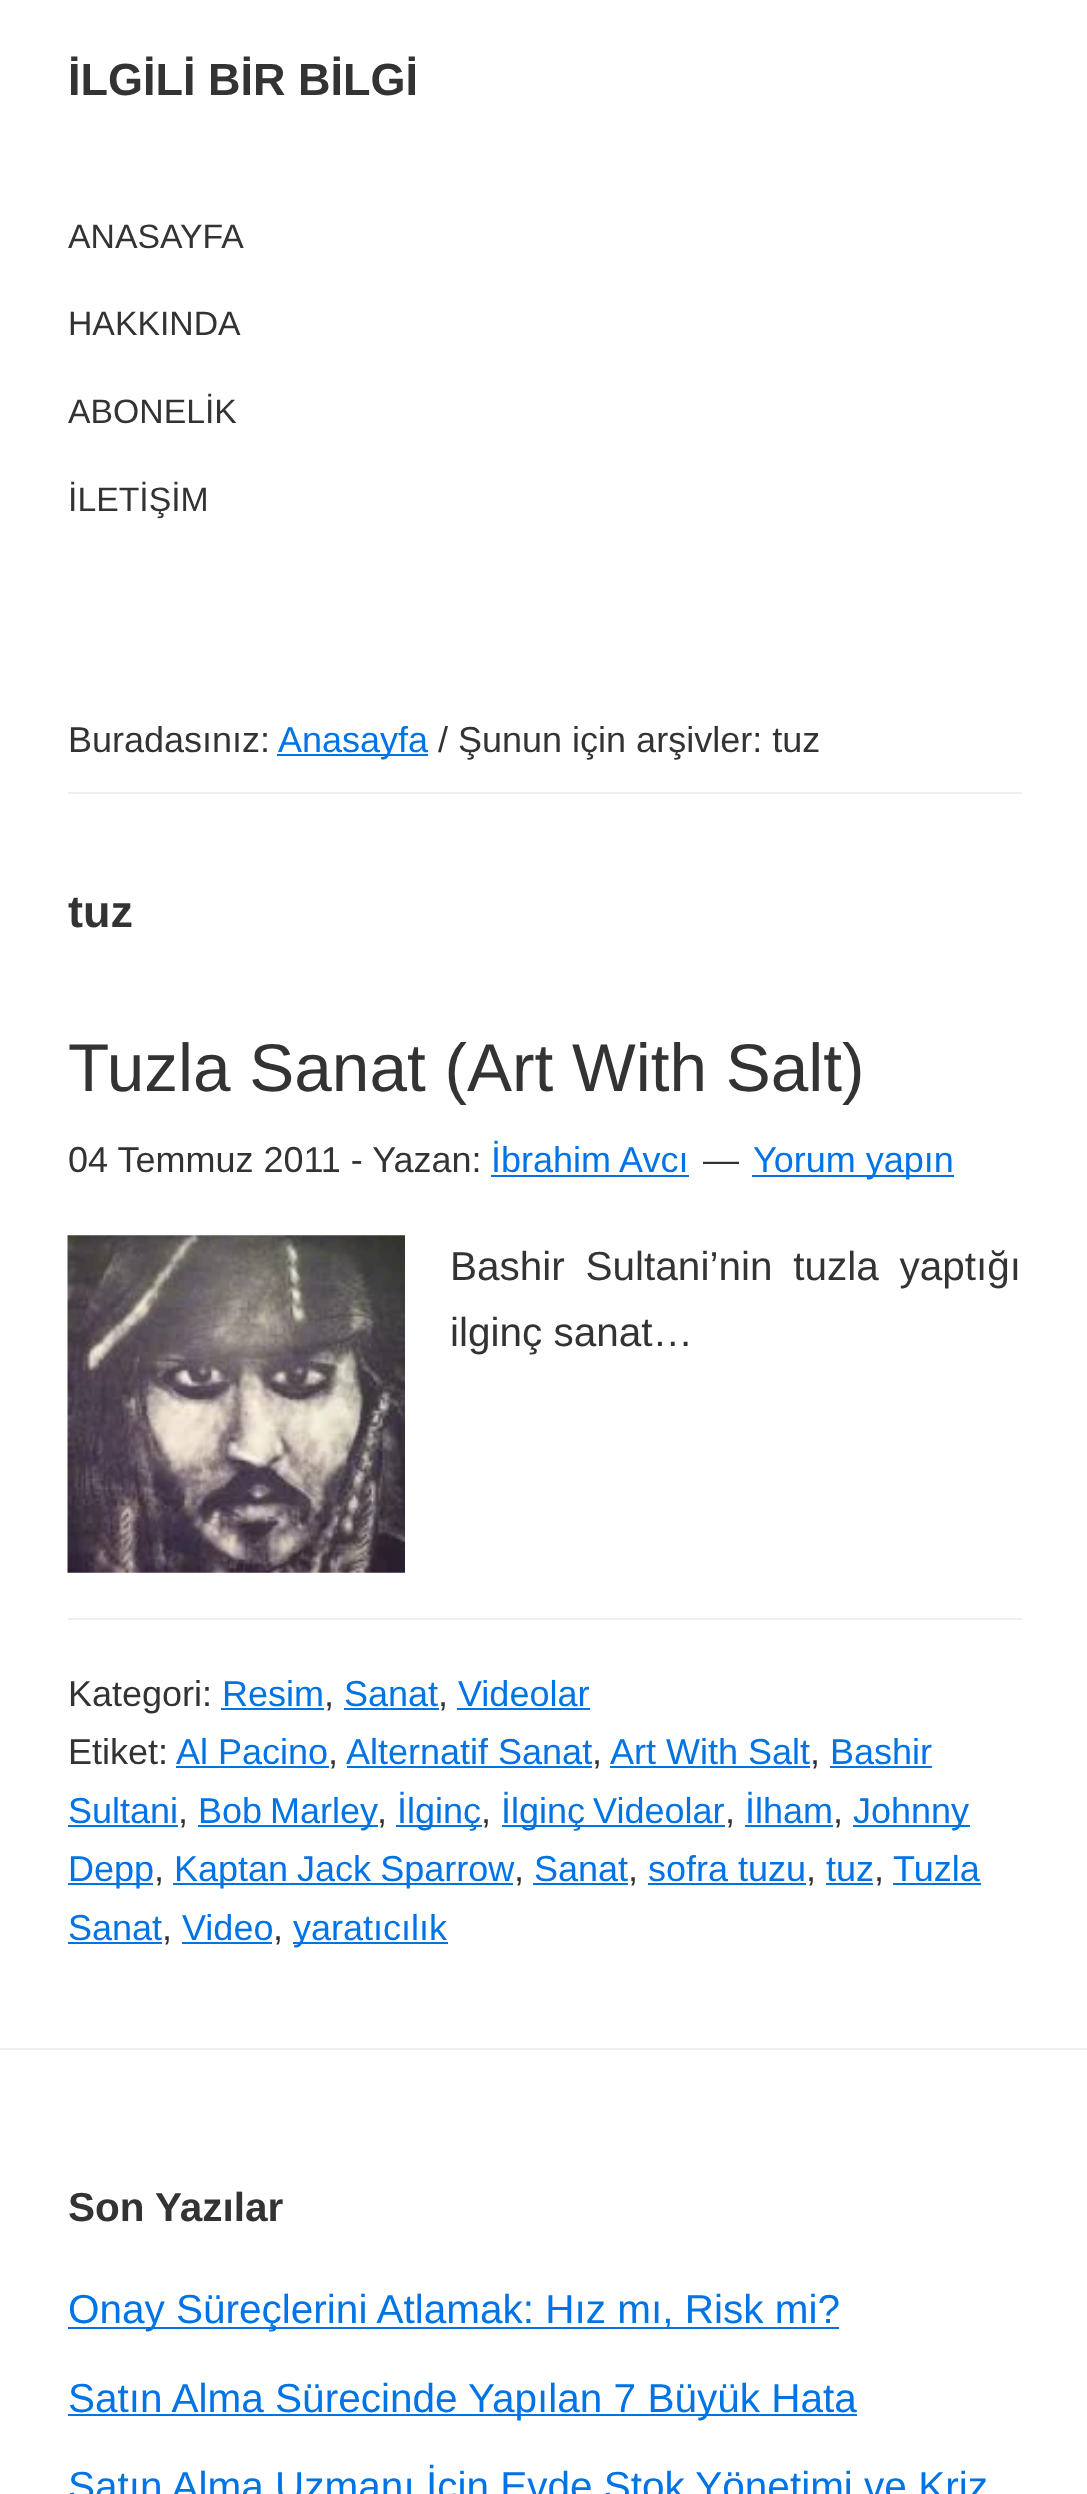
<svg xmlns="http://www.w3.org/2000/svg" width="1087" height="2494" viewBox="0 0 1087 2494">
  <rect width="100%" height="100%" fill="#fff"/>
  <path d="M68 792h954v2H68z" fill="#eee"/>
  <path d="M277 754h151v2H277z" fill="#0073e5"/>
  <path d="M491 1175h198v2H491z" fill="#0073e5"/>
  <path d="M752 1175h202v2H752z" fill="#0073e5"/>
  <image x="67" y="1235" width="338" height="338" href="img/1.png"/>
  <path d="M68 1618h954v2H68z" fill="#eee"/>
  <path d="M221 1708h103v2H221z" fill="#0073e5"/>
  <path d="M344 1708h95v2H344z" fill="#0073e5"/>
  <path d="M457 1708h133v2H457z" fill="#0073e5"/>
  <path d="M176 1766h153v2H176z" fill="#0073e5"/>
  <path d="M347 1766h245v2H347z" fill="#0073e5"/>
  <path d="M610 1766h200v2H610z" fill="#0073e5"/>
  <path d="M830 1766h102v2H830z" fill="#0073e5"/>
  <path d="M68 1825h110v2H68z" fill="#0073e5"/>
  <path d="M198 1825h180v2H198z" fill="#0073e5"/>
  <path d="M396 1825h86v2H396z" fill="#0073e5"/>
  <path d="M502 1825h223v2H502z" fill="#0073e5"/>
  <path d="M745 1825h88v2H745z" fill="#0073e5"/>
  <path d="M853 1825h117v2H853z" fill="#0073e5"/>
  <path d="M68 1883h85v2H68z" fill="#0073e5"/>
  <path d="M173 1883h340v2H173z" fill="#0073e5"/>
  <path d="M533 1883h95v2H533z" fill="#0073e5"/>
  <path d="M648 1883h158v2H648z" fill="#0073e5"/>
  <path d="M826 1883h47v2H826z" fill="#0073e5"/>
  <path d="M893 1883h88v2H893z" fill="#0073e5"/>
  <path d="M68 1942h94v2H68z" fill="#0073e5"/>
  <path d="M182 1942h90v2H182z" fill="#0073e5"/>
  <path d="M293 1942h155v2H293z" fill="#0073e5"/>
  <path d="M0 2048h1087v2H0z" fill="#eee"/>
  <path d="M68 2327h771v2H68z" fill="#0073e5"/>
  <path d="M68 2414h789v2H68z" fill="#0073e5"/>
  <text x="68" y="95" font-family="Liberation Sans" font-size="45" font-weight="bold" fill="#333">İLGİLİ BİR BİLGİ</text>
  <g font-family="Liberation Sans" font-size="33.75" fill="#333">
    <text x="68" y="248">ANASAYFA</text>
    <text x="68" y="335">HAKKINDA</text>
    <text x="68" y="423">ABONELİK</text>
    <text x="68" y="511">İLETİŞİM</text>
  </g>
  <text x="68" y="752" font-family="Liberation Sans" font-size="36" fill="#333">Buradasınız:</text>
  <text x="278" y="752" font-family="Liberation Sans" font-size="36" fill="#0073e5">Anasayfa</text>
  <text x="438" y="752" font-family="Liberation Sans" font-size="36" fill="#333">/ Şunun için arşivler: tuz</text>
  <text x="68" y="927" font-family="Liberation Sans" font-size="45" font-weight="bold" fill="#333">tuz</text>
  <text x="68" y="1091" font-family="Liberation Sans" font-size="67.5" fill="#333">Tuzla Sanat (Art With Salt)</text>
  <text x="68" y="1172" font-family="Liberation Sans" font-size="36" fill="#333">04 Temmuz 2011 - Yazan:</text>
  <text x="491" y="1172" font-family="Liberation Sans" font-size="36" fill="#0073e5">İbrahim Avcı</text>
  <text x="703" y="1172" font-family="Liberation Sans" font-size="36" fill="#333">—</text>
  <text x="753" y="1172" font-family="Liberation Sans" font-size="36" fill="#0073e5">Yorum yapın</text>
  <g font-family="Liberation Sans" font-size="40.5" fill="#333">
    <text x="450" y="1280" word-spacing="9.5">Bashir Sultani’nin tuzla yaptığı</text>
    <text x="450" y="1346">ilginç sanat…</text>
  </g>
  <text x="68" y="1706" font-family="Liberation Sans" font-size="36" fill="#333">Kategori:</text>
  <text x="222" y="1706" font-family="Liberation Sans" font-size="36" fill="#0073e5">Resim</text>
  <text x="324" y="1706" font-family="Liberation Sans" font-size="36" fill="#333">,</text>
  <text x="344" y="1706" font-family="Liberation Sans" font-size="36" fill="#0073e5">Sanat</text>
  <text x="438" y="1706" font-family="Liberation Sans" font-size="36" fill="#333">,</text>
  <text x="458" y="1706" font-family="Liberation Sans" font-size="36" fill="#0073e5">Videolar</text>
  <text x="68" y="1764" font-family="Liberation Sans" font-size="36" fill="#333">Etiket:</text>
  <text x="176" y="1764" font-family="Liberation Sans" font-size="36" fill="#0073e5">Al Pacino</text>
  <text x="328" y="1764" font-family="Liberation Sans" font-size="36" fill="#333">,</text>
  <text x="346" y="1764" font-family="Liberation Sans" font-size="36" fill="#0073e5">Alternatif Sanat</text>
  <text x="592" y="1764" font-family="Liberation Sans" font-size="36" fill="#333">,</text>
  <text x="610" y="1764" font-family="Liberation Sans" font-size="36" fill="#0073e5">Art With Salt</text>
  <text x="810" y="1764" font-family="Liberation Sans" font-size="36" fill="#333">,</text>
  <g font-family="Liberation Sans" font-size="36" fill="#0073e5">
    <text x="830" y="1764">Bashir</text>
    <text x="68" y="1823">Sultani</text>
  </g>
  <text x="178" y="1823" font-family="Liberation Sans" font-size="36" fill="#333">,</text>
  <text x="198" y="1823" word-spacing="-2" font-family="Liberation Sans" font-size="36" fill="#0073e5">Bob Marley</text>
  <text x="377" y="1823" font-family="Liberation Sans" font-size="36" fill="#333">,</text>
  <text x="397" y="1823" font-family="Liberation Sans" font-size="36" fill="#0073e5">İlginç</text>
  <text x="481" y="1823" font-family="Liberation Sans" font-size="36" fill="#333">,</text>
  <text x="501" y="1823" word-spacing="-2" font-family="Liberation Sans" font-size="36" fill="#0073e5">İlginç Videolar</text>
  <text x="725" y="1823" font-family="Liberation Sans" font-size="36" fill="#333">,</text>
  <text x="745" y="1823" font-family="Liberation Sans" font-size="36" fill="#0073e5">İlham</text>
  <text x="833" y="1823" font-family="Liberation Sans" font-size="36" fill="#333">,</text>
  <g font-family="Liberation Sans" font-size="36" fill="#0073e5">
    <text x="853" y="1823">Johnny</text>
    <text x="68" y="1881">Depp</text>
  </g>
  <text x="154" y="1881" font-family="Liberation Sans" font-size="36" fill="#333">,</text>
  <text x="174" y="1881" word-spacing="-1" font-family="Liberation Sans" font-size="36" fill="#0073e5">Kaptan Jack Sparrow</text>
  <text x="514" y="1881" font-family="Liberation Sans" font-size="36" fill="#333">,</text>
  <text x="534" y="1881" font-family="Liberation Sans" font-size="36" fill="#0073e5">Sanat</text>
  <text x="628" y="1881" font-family="Liberation Sans" font-size="36" fill="#333">,</text>
  <text x="648" y="1881" font-family="Liberation Sans" font-size="36" fill="#0073e5">sofra tuzu</text>
  <text x="806" y="1881" font-family="Liberation Sans" font-size="36" fill="#333">,</text>
  <text x="826" y="1881" font-family="Liberation Sans" font-size="36" fill="#0073e5">tuz</text>
  <text x="874" y="1881" font-family="Liberation Sans" font-size="36" fill="#333">,</text>
  <g font-family="Liberation Sans" font-size="36" fill="#0073e5">
    <text x="893" y="1881">Tuzla</text>
    <text x="68" y="1940">Sanat</text>
  </g>
  <text x="162" y="1940" font-family="Liberation Sans" font-size="36" fill="#333">,</text>
  <text x="182" y="1940" font-family="Liberation Sans" font-size="36" fill="#0073e5">Video</text>
  <text x="273" y="1940" font-family="Liberation Sans" font-size="36" fill="#333">,</text>
  <text x="293" y="1940" font-family="Liberation Sans" font-size="36" fill="#0073e5">yaratıcılık</text>
  <text x="68" y="2221" font-family="Liberation Sans" font-size="40.5" font-weight="bold" fill="#333">Son Yazılar</text>
  <g font-family="Liberation Sans" font-size="40.5" fill="#0073e5">
    <text x="68" y="2323">Onay Süreçlerini Atlamak: Hız mı, Risk mi?</text>
    <text x="68" y="2412">Satın Alma Sürecinde Yapılan 7 Büyük Hata</text>
    <text x="68" y="2500">Satın Alma Uzmanı İçin Evde Stok Yönetimi ve Kriz</text>
  </g>
</svg>
